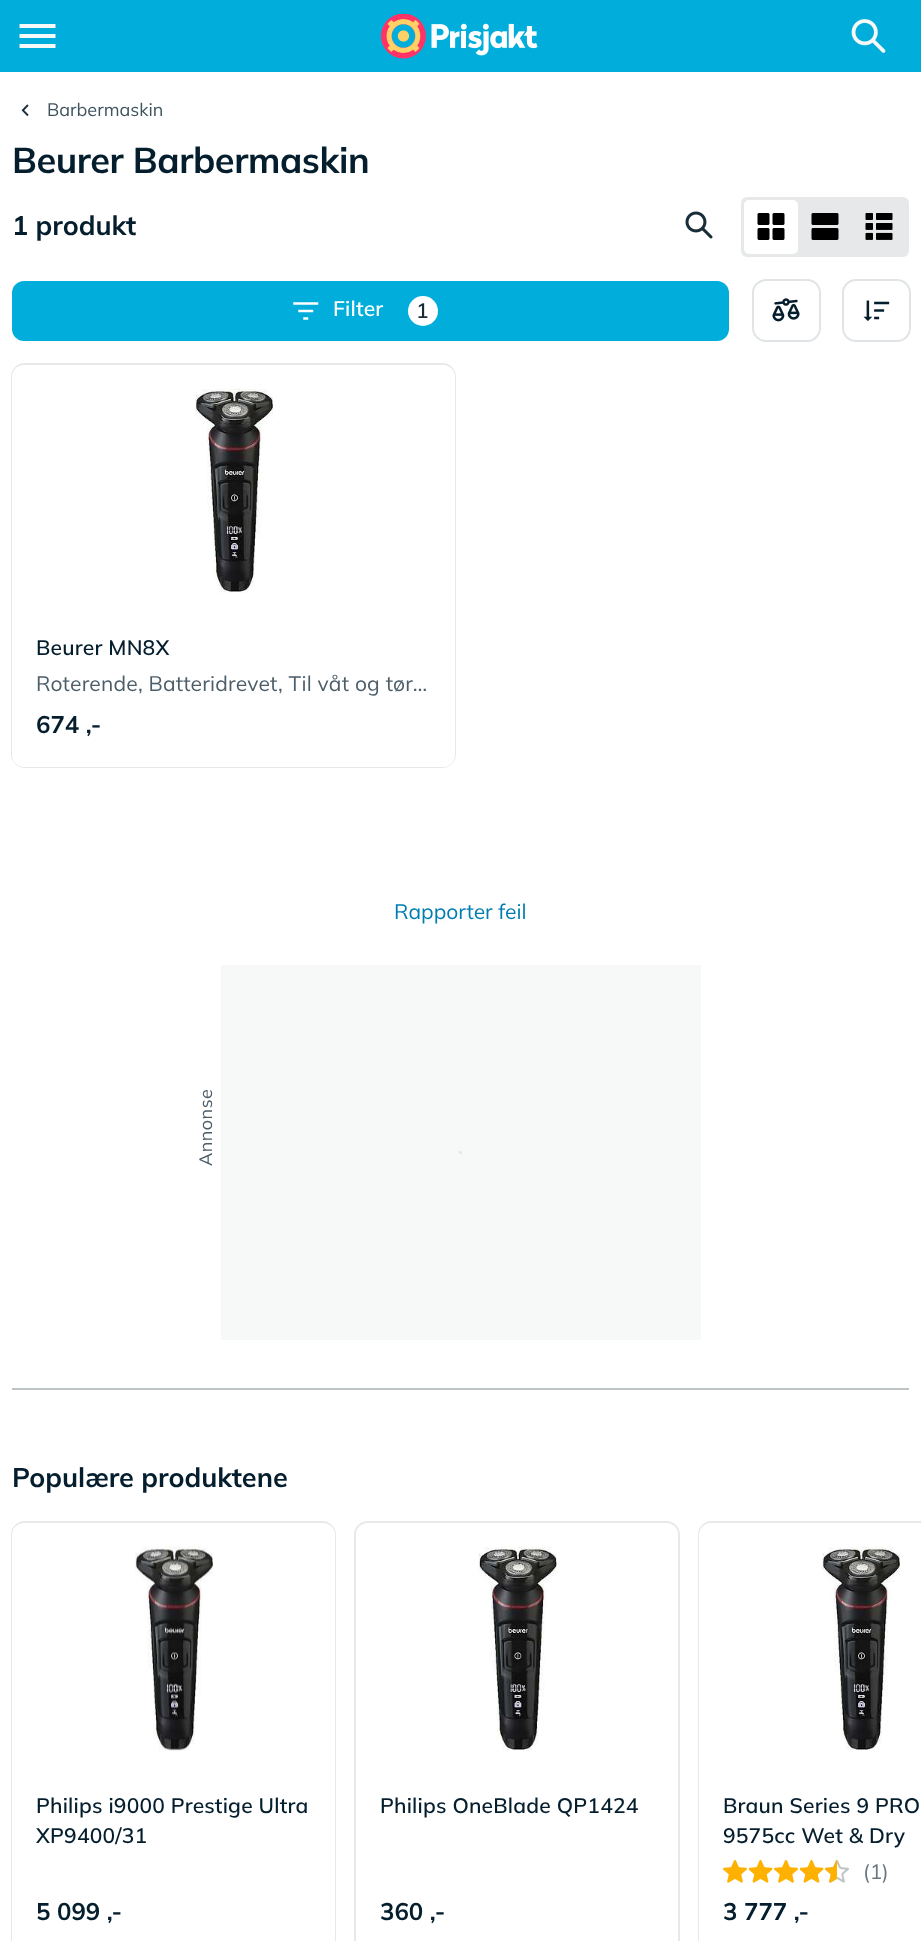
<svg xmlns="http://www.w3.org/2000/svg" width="921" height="1941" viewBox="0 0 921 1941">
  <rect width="100%" height="100%" fill="#fff"/>
  <path d="M0 0h921v72H0z" fill="#00addb"/>
  <path d="M19.5 48H55.5V44H19.5ZM19.5 38H55.5V34H19.5ZM19.5 24V28H55.5V24Z" fill="#f7f8f8" fill-rule="evenodd"/>
  <image x="381" y="14" width="157" height="45" href="img/1.png"/>
  <image x="851" y="19" width="35" height="34" href="img/2.png"/>
  <image x="21" y="104" width="8" height="13" href="img/3.png"/>
  <image x="685" y="211" width="28" height="28" href="img/4.png"/>
  <rect x="741" y="197" width="168" height="60" rx="6" fill="#e6e8ea"/>
  <rect x="744" y="200" width="54" height="54" rx="5" fill="#fff"/>
  <image x="757" y="213" width="28" height="27" href="img/5.png"/>
  <image x="811" y="213" width="28" height="27" href="img/6.png"/>
  <image x="865" y="213" width="28" height="27" href="img/7.png"/>
  <rect x="12" y="281" width="717" height="60" rx="12" fill="#00addb"/>
  <image x="293" y="302" width="26" height="18" href="img/8.png"/>
  <circle cx="423" cy="311" r="15" fill="#fff"/>
  <rect x="753" y="280" width="67" height="61" rx="13" fill="none" stroke="#e1e4e6" stroke-width="2"/>
  <image x="772" y="298" width="28" height="24" href="img/9.png"/>
  <rect x="843" y="280" width="67" height="61" rx="13" fill="none" stroke="#e1e4e6" stroke-width="2"/>
  <image x="863" y="300" width="27" height="21" href="img/10.png"/>
  <rect x="12" y="364" width="443" height="403" rx="13" fill="none" stroke="#e6e8ea" stroke-width="2"/>
  <rect x="12" y="365" width="443" height="402" rx="12" fill="#fff"/>
  <image x="195" y="388" width="78" height="205" href="img/11.png"/>
  <path d="M221 965h480v375H221z" fill="#f7f8f8"/>
  <path d="M459 1151h3v3H459z" fill="#e6e8ea"/>
  <path d="M12 1388h897v2H12z" fill="#bec3c6"/>
  <rect x="12" y="1522" width="323" height="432" rx="13" fill="none" stroke="#e6e8ea" stroke-width="2"/>
  <rect x="12" y="1523" width="323" height="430" rx="12" fill="#fff"/>
  <image x="135" y="1546" width="78" height="205" href="img/12.png"/>
  <rect x="355" y="1522" width="324" height="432" rx="13" fill="none" stroke="#e6e8ea" stroke-width="2"/>
  <rect x="356" y="1523" width="322" height="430" rx="12" fill="#fff"/>
  <image x="478" y="1546" width="79" height="205" href="img/13.png"/>
  <rect x="699" y="1522" width="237" height="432" rx="13" fill="none" stroke="#e6e8ea" stroke-width="2"/>
  <path d="M711 1523H921V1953H711C704.5 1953 699 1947.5 699 1941V1535C699 1528.5 704.5 1523 711 1523Z" fill="#fff"/>
  <image x="822" y="1546" width="78" height="205" href="img/11.png"/>
  <image x="723" y="1860" width="24" height="23" href="img/14.png"/>
  <image x="749" y="1860" width="24" height="23" href="img/15.png"/>
  <image x="774" y="1860" width="24" height="23" href="img/14.png"/>
  <image x="800" y="1860" width="24" height="23" href="img/15.png"/>
  <image x="825" y="1860" width="24" height="23" href="img/16.png"/>
  <text x="47" y="116" font-family="Mulish" font-size="18" fill="#3f535f">Barbermaskin</text>
  <text x="12" y="173" font-family="Mulish" font-size="36" font-weight="bold" letter-spacing="-0.4" fill="#051e2e">Beurer Barbermaskin</text>
  <text x="12" y="235" font-family="Mulish" font-size="27" font-weight="bold" fill="#051e2e">1 produkt</text>
  <text x="333" y="316" font-family="Mulish" font-size="21" font-weight="600" letter-spacing="0.2" fill="#fff">Filter</text>
  <text x="416" y="318" font-family="Mulish" font-size="21" font-weight="600" fill="#182c39">1</text>
  <text x="36" y="655" font-family="Mulish" font-size="21" font-weight="600" letter-spacing="0.2" fill="#051e2e">Beurer MN8X</text>
  <text x="36" y="691" font-family="Mulish" font-size="21" letter-spacing="0.2" fill="#4b5d69">Roterende, Batteridrevet, Til våt og tør…</text>
  <text x="36" y="733" font-family="Mulish" font-size="24" font-weight="bold" fill="#051e2e">674 ,-</text>
  <text x="394" y="919" font-family="Mulish" font-size="21" fill="#007cb2">Rapporter feil</text>
  <text x="212" y="1166" transform="rotate(-90 212 1166)" font-family="Mulish" font-size="18" letter-spacing="0.5" fill="#4b5d69">Annonse</text>
  <text x="12" y="1487" font-family="Mulish" font-size="27" font-weight="bold" fill="#051e2e">Populære produktene</text>
  <g font-family="Mulish" font-size="21" font-weight="600" letter-spacing="0.2" fill="#051e2e">
    <text x="36" y="1813">Philips i9000 Prestige Ultra</text>
    <text x="36" y="1843">XP9400/31</text>
  </g>
  <text x="36" y="1920" font-family="Mulish" font-size="24" font-weight="bold" fill="#051e2e">5 099 ,-</text>
  <text x="380" y="1813" font-family="Mulish" font-size="21" font-weight="600" letter-spacing="0.2" fill="#051e2e">Philips OneBlade QP1424</text>
  <text x="380" y="1920" font-family="Mulish" font-size="24" font-weight="bold" fill="#051e2e">360 ,-</text>
  <g font-family="Mulish" font-size="21" font-weight="600" letter-spacing="0.2" fill="#051e2e">
    <text x="723" y="1813">Braun Series 9 PRO</text>
    <text x="723" y="1843">9575cc Wet &amp; Dry</text>
  </g>
  <g font-family="Mulish" font-size="21" fill="#6a7881">
    <text x="863" y="1879">(1</text>
    <text x="882" y="1879">)</text>
  </g>
  <text x="723" y="1920" font-family="Mulish" font-size="24" font-weight="bold" fill="#051e2e">3 777 ,-</text>
</svg>
